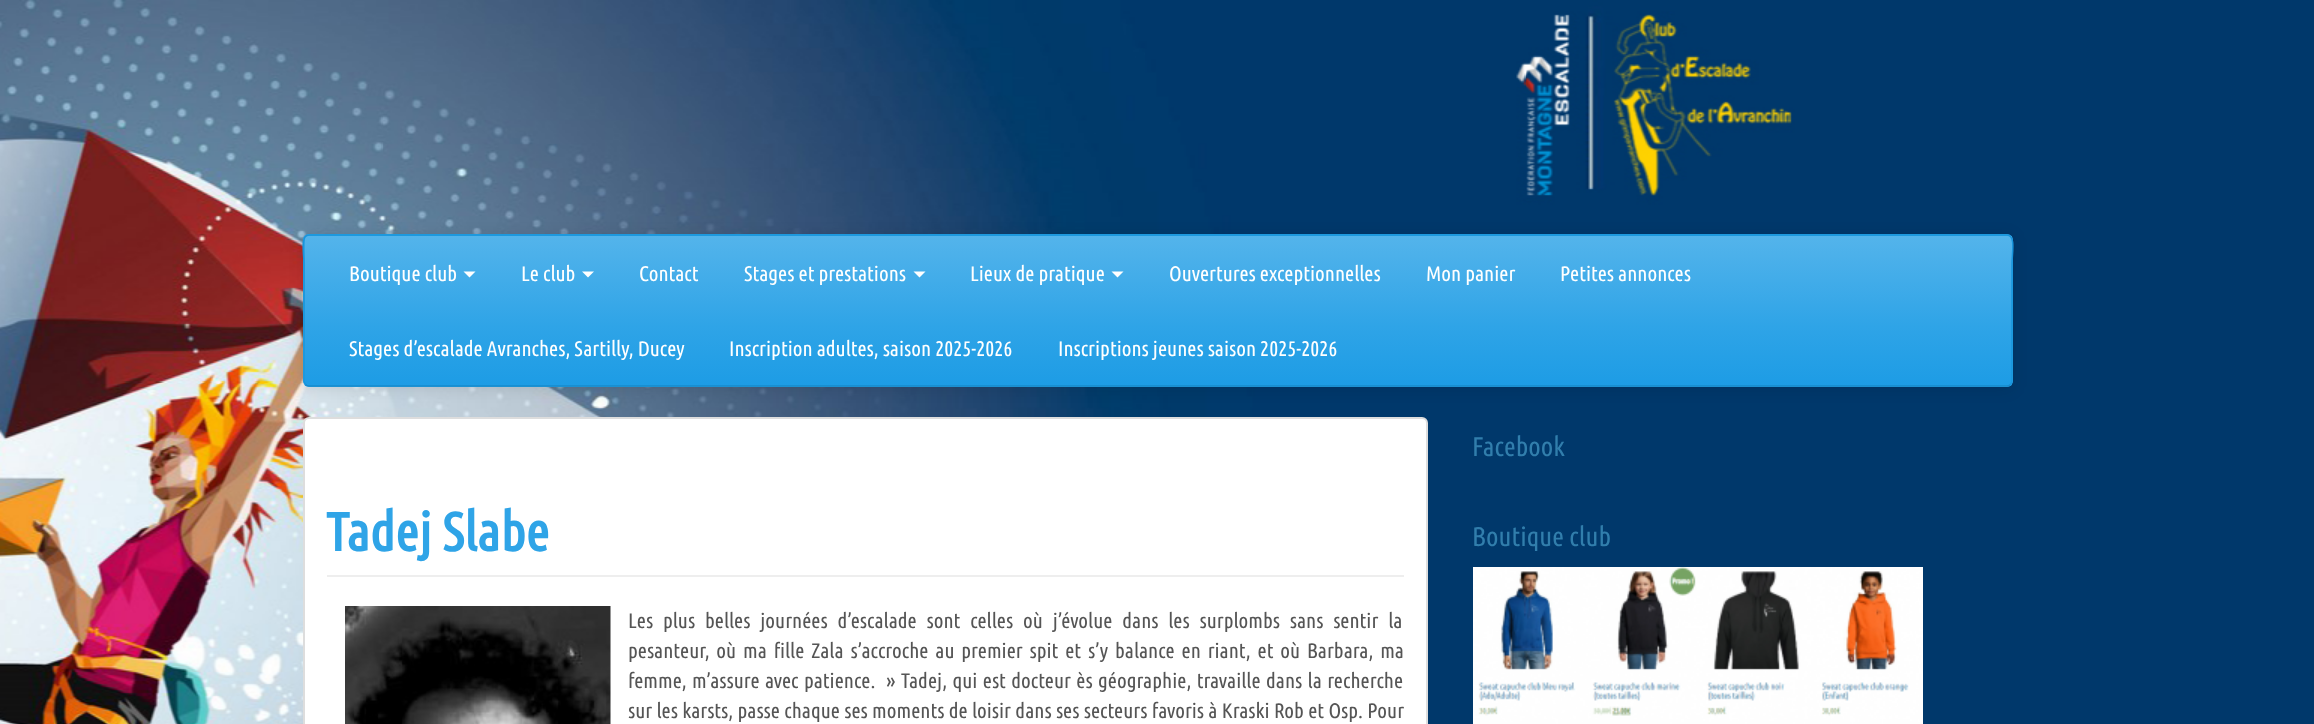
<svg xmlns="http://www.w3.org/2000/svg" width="2314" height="724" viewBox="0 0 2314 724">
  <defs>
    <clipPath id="clip1"><rect x="303" y="234" width="1710" height="153" rx="6"/></clipPath>
    <linearGradient id="g1" gradientUnits="userSpaceOnUse" x1="1158" y1="235" x2="1158" y2="386"><stop offset="0" stop-color="#54b4eb"/><stop offset="0.6" stop-color="#2fa4e7"/><stop offset="1" stop-color="#1d9ce5"/></linearGradient>
  </defs>
  <rect width="100%" height="100%" fill="#fff"/>
  <image x="0" y="0" width="2314" height="724" href="img/1.png"/>
  <rect x="303" y="236" width="1710" height="153" rx="6" fill="#0000001a" filter="blur(7.5px)"/>
  <rect x="303" y="234" width="1710" height="153" rx="6" fill="#2fa4e7"/>
  <g clip-path="url(#clip1)">
    <path d="M305 236h1707v150H305z" fill="url(#g1)"/>
  </g>
  <path d="M2010.5 384.5C2009.5 385.5 2008.5 386 2007 386H309C307.5 386 306.5 385.5 305.5 384.5" fill="none" stroke="#178acc" stroke-width="1.5"/>
  <path d="M305.5 384.5L304 381.5V263.5C304 253.5 300 235 309 235H2007C2016 235 2012 253.5 2012 263.5V381.5L2010.5 384.5" fill="none" stroke="#1995dc" stroke-width="1.5"/>
  <path d="M463.5 271.5H475.5L469.5 277.5Z" fill="#fff"/>
  <path d="M582 271.5H594L588 277.5Z" fill="#fff"/>
  <path d="M913.5 271.5H925.5L919.5 277.5Z" fill="#fff"/>
  <path d="M1111.5 271.5H1123.5L1117.5 277.5Z" fill="#fff"/>
  <image x="1473" y="567" width="450" height="157" href="img/2.png"/>
  <rect x="304" y="418" width="1123" height="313" rx="5" fill="#fff" stroke="#ddd" stroke-width="2"/>
  <path d="M327 575h1077v2H327z" fill="#eee"/>
  <image x="345" y="606" width="266" height="118" href="img/3.png"/>
  <g font-family="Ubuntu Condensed" font-size="21" fill="#fff">
    <text x="349" y="281">Boutique club</text>
    <text x="521" y="281">Le club</text>
    <text x="639" y="281">Contact</text>
    <text x="744" y="281">Stages et prestations</text>
    <text x="970" y="281">Lieux de pratique</text>
    <text x="1169" y="281">Ouvertures exceptionnelles</text>
    <text x="1426" y="281">Mon panier</text>
    <text x="1560" y="281">Petites annonces</text>
    <text x="349" y="356">Stages d’escalade Avranches, Sartilly, Ducey</text>
    <text x="729" y="356">Inscription adultes, saison 2025-2026</text>
    <text x="1058" y="356">Inscriptions jeunes saison 2025-2026</text>
  </g>
  <g font-family="Ubuntu Condensed" font-size="27" fill="#317eac">
    <text x="1472" y="456">Facebook</text>
    <text x="1472" y="546">Boutique club</text>
  </g>
  <text x="326" y="551" font-family="Ubuntu Condensed" font-size="54" font-weight="bold" fill="#2fa4e7">Tadej Slabe</text>
  <g font-family="Ubuntu Condensed" font-size="21" fill="#555">
    <text x="628" y="628" word-spacing="5.75">Les plus belles journées d’escalade sont celles où j’évolue dans les surplombs sans sentir la</text>
    <text x="628" y="658" word-spacing="2.75">pesanteur, où ma fille Zala s’accroche au premier spit et s’y balance en riant, et où Barbara, ma</text>
    <text x="628" y="688" word-spacing="1.3" xml:space="preserve">femme, m’assure avec patience.  » Tadej, qui est docteur ès géographie, travaille dans la recherche</text>
    <text x="628" y="718" word-spacing="0.25">sur les karsts, passe chaque ses moments de loisir dans ses secteurs favoris à Kraski Rob et Osp. Pour</text>
  </g>
</svg>
